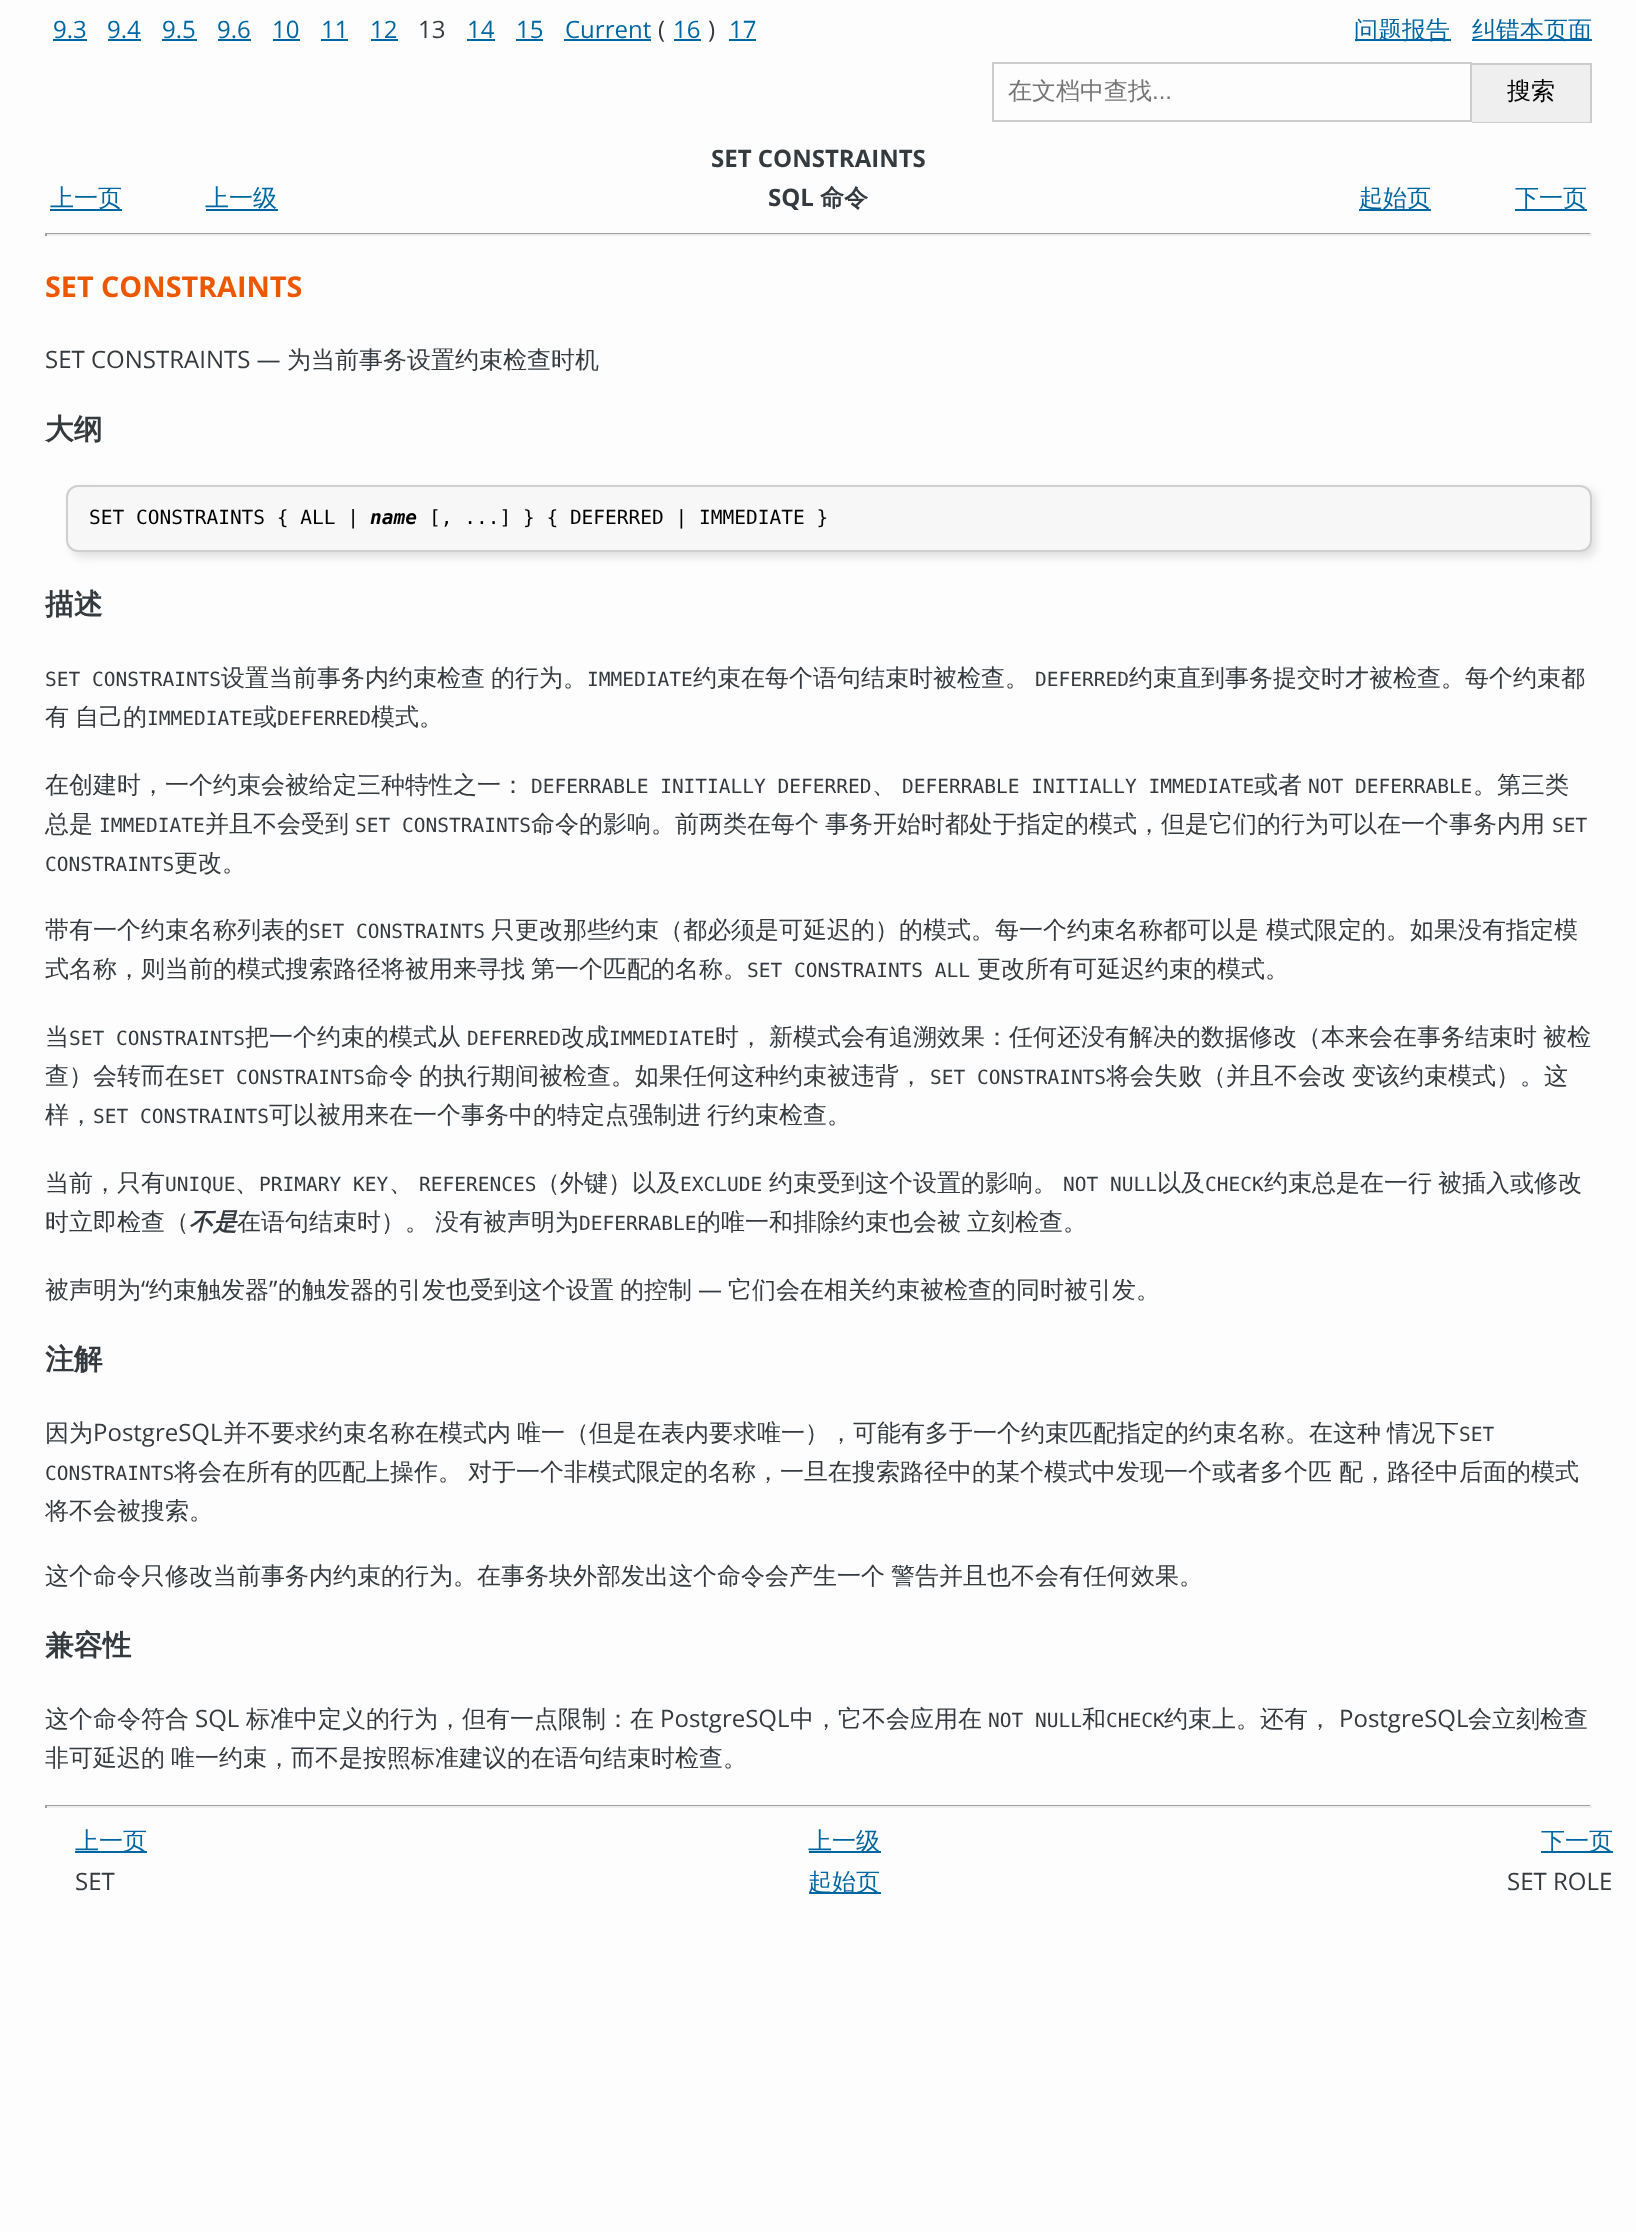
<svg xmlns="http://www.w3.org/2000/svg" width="1636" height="2232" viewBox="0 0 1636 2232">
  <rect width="100%" height="100%" fill="#fdfdfd"/>
  <path d="M53 39h34v2H53z" fill="#0066a2"/>
  <path d="M108 39h33v2H108z" fill="#0066a2"/>
  <path d="M162 39h35v2H162z" fill="#0066a2"/>
  <path d="M218 39h33v2H218z" fill="#0066a2"/>
  <path d="M273 39h27v2H273z" fill="#0066a2"/>
  <path d="M321 39h27v2H321z" fill="#0066a2"/>
  <path d="M371 39h27v2H371z" fill="#0066a2"/>
  <path d="M467 39h28v2H467z" fill="#0066a2"/>
  <path d="M516 39h27v2H516z" fill="#0066a2"/>
  <path d="M564 39h87v2H564z" fill="#0066a2"/>
  <path d="M674 39h27v2H674z" fill="#0066a2"/>
  <path d="M729 39h27v2H729z" fill="#0066a2"/>
  <path d="M1355 39h96v2H1355z" fill="#0066a2"/>
  <path d="M1472 39h120v2H1472z" fill="#0066a2"/>
  <path d="M993 63h478v58H993z" fill="none" stroke="#ccc" stroke-width="2"/>
  <path d="M1472 65h118v57H1472z" fill="#efefef"/>
  <path d="M1472 63h120v2H1472z" fill="#ccc"/>
  <path d="M1590 63h2v60H1590z" fill="#ccc"/>
  <path d="M1472 122h120v1H1472z" fill="#ccc"/>
  <path d="M50 209h72v2H50z" fill="#0066a2"/>
  <path d="M206 209h72v2H206z" fill="#0066a2"/>
  <path d="M1359 209h72v2H1359z" fill="#0066a2"/>
  <path d="M1515 209h72v2H1515z" fill="#0066a2"/>
  <path d="M45 233h1547v1H45z" fill="#9f9f9f"/>
  <path d="M1590 233h2v3H1590z" fill="#eee"/>
  <path d="M45 234h1547v2H45z" fill="#eee"/>
  <path d="M45 233h2v3H45z" fill="#9f9f9f"/>
  <rect x="71" y="489" width="1525" height="68" rx="12" fill="#dfdfdf" filter="blur(4px)"/>
  <rect x="67" y="486" width="1524" height="65" rx="11" fill="#f7f7f7" stroke="#cfcfcf" stroke-width="2"/>
  <path d="M45 1805h1547v1H45z" fill="#9f9f9f"/>
  <path d="M1590 1805h2v3H1590z" fill="#eee"/>
  <path d="M45 1806h1547v2H45z" fill="#eee"/>
  <path d="M45 1805h2v3H45z" fill="#9f9f9f"/>
  <path d="M75 1851h72v2H75z" fill="#0066a2"/>
  <path d="M809 1851h72v2H809z" fill="#0066a2"/>
  <path d="M1541 1851h72v2H1541z" fill="#0066a2"/>
  <path d="M809 1892h72v2H809z" fill="#0066a2"/>
  <g font-family="Open Sans" font-size="24" fill="#0066a2">
    <text x="53" y="38">9.3</text>
    <text x="107" y="38">9.4</text>
    <text x="162" y="38">9.5</text>
    <text x="217" y="38">9.6</text>
    <text x="272" y="38">10</text>
    <text x="321" y="38">11</text>
    <text x="370" y="38">12</text>
  </g>
  <text x="418" y="38" font-family="Open Sans" font-size="24" fill="#353a3f">13</text>
  <g font-family="Open Sans" font-size="24" fill="#0066a2">
    <text x="467" y="38">14</text>
    <text x="516" y="38">15</text>
    <text x="565" y="38">Current</text>
  </g>
  <text x="658" y="38" font-family="Open Sans" font-size="24" fill="#353a3f">(</text>
  <text x="673" y="38" font-family="Open Sans" font-size="24" fill="#0066a2">16</text>
  <text x="708" y="38" font-family="Open Sans" font-size="24" fill="#353a3f">)</text>
  <text x="729" y="38" font-family="Open Sans" font-size="24" fill="#0066a2">17</text>
  <g font-family="WenQuanYi Zen Hei" font-size="24" font-weight="500" fill="#0066a2">
    <text x="1354" y="38">问题报告</text>
    <text x="1472" y="38">纠错本页面</text>
  </g>
  <text x="1008" y="99" font-family="WenQuanYi Zen Hei" font-size="24" font-weight="500" fill="#757575">在文档中查找</text>
  <text x="1152" y="99" font-family="Liberation Sans" font-size="24" fill="#757575">...</text>
  <text x="1507" y="99" font-family="WenQuanYi Zen Hei" font-size="24" font-weight="500" fill="#000">搜索</text>
  <text x="711" y="167" font-family="Open Sans" font-size="24" font-weight="bold" fill="#353a3f">SET CONSTRAINTS</text>
  <g font-family="WenQuanYi Zen Hei" font-size="24" font-weight="500" fill="#0066a2">
    <text x="50" y="206">上一页</text>
    <text x="205" y="206">上一级</text>
  </g>
  <text x="768" y="206" font-family="Open Sans" font-size="24" font-weight="bold" fill="#353a3f">SQL</text>
  <text x="820" y="206" font-family="WenQuanYi Zen Hei" font-size="24" font-weight="bold" fill="#353a3f">命令</text>
  <g font-family="WenQuanYi Zen Hei" font-size="24" font-weight="500" fill="#0066a2">
    <text x="1359" y="206">起始页</text>
    <text x="1515" y="206">下一页</text>
  </g>
  <text x="45" y="297" font-family="Open Sans" font-size="28.75" font-weight="bold" fill="#ec5800">SET CONSTRAINTS</text>
  <text x="45" y="368" font-family="Open Sans" font-size="24" fill="#353a3f">SET CONSTRAINTS —</text>
  <text x="287" y="368" font-family="WenQuanYi Zen Hei" font-size="24" font-weight="500" fill="#353a3f">为当前事务设置约束检查时机</text>
  <text x="45" y="439" font-family="WenQuanYi Zen Hei" font-size="28.75" font-weight="bold" fill="#353a3f">大纲</text>
  <text x="89" y="524" font-family="DejaVu Sans Mono" font-size="19.5" fill="#000">SET CONSTRAINTS { ALL |</text>
  <text x="370" y="524" font-family="DejaVu Sans Mono" font-size="19.5" font-weight="bold" font-style="italic" fill="#000">name</text>
  <text x="429" y="524" font-family="DejaVu Sans Mono" font-size="19.5" fill="#000">[, ...] } { DEFERRED | IMMEDIATE }</text>
  <text x="45" y="614" font-family="WenQuanYi Zen Hei" font-size="28.75" font-weight="bold" fill="#353a3f">描述</text>
  <text x="45" y="686" font-family="DejaVu Sans Mono" font-size="19.5" fill="#353a3f">SET CONSTRAINTS</text>
  <g font-family="WenQuanYi Zen Hei" font-size="24" font-weight="500" fill="#353a3f">
    <text x="221" y="686">设置当前事务内约束检查</text>
    <text x="491" y="686">的行为。</text>
  </g>
  <text x="587" y="686" font-family="DejaVu Sans Mono" font-size="19.5" fill="#353a3f">IMMEDIATE</text>
  <text x="693" y="686" font-family="WenQuanYi Zen Hei" font-size="24" font-weight="500" fill="#353a3f">约束在每个语句结束时被检查。</text>
  <text x="1035" y="686" font-family="DejaVu Sans Mono" font-size="19.5" fill="#353a3f">DEFERRED</text>
  <g font-family="WenQuanYi Zen Hei" font-size="24" font-weight="500" fill="#353a3f">
    <text x="1129" y="686">约束直到事务提交时才被检查。每个约束都</text>
    <text x="45" y="725">有</text>
    <text x="75" y="725">自己的</text>
  </g>
  <text x="147" y="725" font-family="DejaVu Sans Mono" font-size="19.5" fill="#353a3f">IMMEDIATE</text>
  <text x="253" y="725" font-family="WenQuanYi Zen Hei" font-size="24" font-weight="500" fill="#353a3f">或</text>
  <text x="277" y="725" font-family="DejaVu Sans Mono" font-size="19.5" fill="#353a3f">DEFERRED</text>
  <g font-family="WenQuanYi Zen Hei" font-size="24" font-weight="500" fill="#353a3f">
    <text x="371" y="725">模式。</text>
    <text x="45" y="793">在创建时，一个约束会被给定三种特性之一：</text>
  </g>
  <text x="531" y="793" font-family="DejaVu Sans Mono" font-size="19.5" fill="#353a3f">DEFERRABLE INITIALLY DEFERRED</text>
  <text x="872" y="793" font-family="WenQuanYi Zen Hei" font-size="24" font-weight="500" fill="#353a3f">、</text>
  <text x="902" y="793" font-family="DejaVu Sans Mono" font-size="19.5" fill="#353a3f">DEFERRABLE INITIALLY IMMEDIATE</text>
  <text x="1254" y="793" font-family="WenQuanYi Zen Hei" font-size="24" font-weight="500" fill="#353a3f">或者</text>
  <text x="1308" y="793" font-family="DejaVu Sans Mono" font-size="19.5" fill="#353a3f">NOT DEFERRABLE</text>
  <g font-family="WenQuanYi Zen Hei" font-size="24" font-weight="500" fill="#353a3f">
    <text x="1473" y="793">。第三类</text>
    <text x="45" y="832">总是</text>
  </g>
  <text x="99" y="832" font-family="DejaVu Sans Mono" font-size="19.5" fill="#353a3f">IMMEDIATE</text>
  <text x="205" y="832" font-family="WenQuanYi Zen Hei" font-size="24" font-weight="500" fill="#353a3f">并且不会受到</text>
  <text x="355" y="832" font-family="DejaVu Sans Mono" font-size="19.5" fill="#353a3f">SET CONSTRAINTS</text>
  <g font-family="WenQuanYi Zen Hei" font-size="24" font-weight="500" fill="#353a3f">
    <text x="531" y="832">命令的影响。前两类在每个</text>
    <text x="825" y="832">事务开始时都处于指定的模式，但是它们的行为可以在一个事务内用</text>
  </g>
  <g font-family="DejaVu Sans Mono" font-size="19.5" fill="#353a3f">
    <text x="1552" y="832">SET</text>
    <text x="45" y="871">CONSTRAINTS</text>
  </g>
  <g font-family="WenQuanYi Zen Hei" font-size="24" font-weight="500" fill="#353a3f">
    <text x="174" y="871">更改。</text>
    <text x="45" y="938">带有一个约束名称列表的</text>
  </g>
  <text x="309" y="938" font-family="DejaVu Sans Mono" font-size="19.5" fill="#353a3f">SET CONSTRAINTS</text>
  <g font-family="WenQuanYi Zen Hei" font-size="24" font-weight="500" fill="#353a3f">
    <text x="491" y="938">只更改那些约束（都必须是可延迟的）的模式。每一个约束名称都可以是</text>
    <text x="1266" y="938">模式限定的。如果没有指定模</text>
    <text x="45" y="977">式名称，则当前的模式搜索路径将被用来寻找</text>
    <text x="531" y="977">第一个匹配的名称。</text>
  </g>
  <text x="747" y="977" font-family="DejaVu Sans Mono" font-size="19.5" fill="#353a3f">SET CONSTRAINTS ALL</text>
  <g font-family="WenQuanYi Zen Hei" font-size="24" font-weight="500" fill="#353a3f">
    <text x="977" y="977">更改所有可延迟约束的模式。</text>
    <text x="45" y="1045">当</text>
  </g>
  <text x="69" y="1045" font-family="DejaVu Sans Mono" font-size="19.5" fill="#353a3f">SET CONSTRAINTS</text>
  <text x="245" y="1045" font-family="WenQuanYi Zen Hei" font-size="24" font-weight="500" fill="#353a3f">把一个约束的模式从</text>
  <text x="467" y="1045" font-family="DejaVu Sans Mono" font-size="19.5" fill="#353a3f">DEFERRED</text>
  <text x="561" y="1045" font-family="WenQuanYi Zen Hei" font-size="24" font-weight="500" fill="#353a3f">改成</text>
  <text x="609" y="1045" font-family="DejaVu Sans Mono" font-size="19.5" fill="#353a3f">IMMEDIATE</text>
  <g font-family="WenQuanYi Zen Hei" font-size="24" font-weight="500" fill="#353a3f">
    <text x="715" y="1045">时，</text>
    <text x="769" y="1045">新模式会有追溯效果：任何还没有解决的数据修改（本来会在事务结束时</text>
    <text x="1543" y="1045">被检</text>
    <text x="45" y="1084">查）会转而在</text>
  </g>
  <text x="189" y="1084" font-family="DejaVu Sans Mono" font-size="19.5" fill="#353a3f">SET CONSTRAINTS</text>
  <g font-family="WenQuanYi Zen Hei" font-size="24" font-weight="500" fill="#353a3f">
    <text x="365" y="1084">命令</text>
    <text x="419" y="1084">的执行期间被检查。如果任何这种约束被违背，</text>
  </g>
  <text x="930" y="1084" font-family="DejaVu Sans Mono" font-size="19.5" fill="#353a3f">SET CONSTRAINTS</text>
  <g font-family="WenQuanYi Zen Hei" font-size="24" font-weight="500" fill="#353a3f">
    <text x="1106" y="1084">将会失败（并且不会改</text>
    <text x="1352" y="1084">变该约束模式）。这</text>
    <text x="45" y="1123">样，</text>
  </g>
  <text x="93" y="1123" font-family="DejaVu Sans Mono" font-size="19.5" fill="#353a3f">SET CONSTRAINTS</text>
  <g font-family="WenQuanYi Zen Hei" font-size="24" font-weight="500" fill="#353a3f">
    <text x="269" y="1123">可以被用来在一个事务中的特定点强制进</text>
    <text x="707" y="1123">行约束检查。</text>
    <text x="45" y="1191">当前，只有</text>
  </g>
  <text x="165" y="1191" font-family="DejaVu Sans Mono" font-size="19.5" fill="#353a3f">UNIQUE</text>
  <text x="235" y="1191" font-family="WenQuanYi Zen Hei" font-size="24" font-weight="500" fill="#353a3f">、</text>
  <text x="259" y="1191" font-family="DejaVu Sans Mono" font-size="19.5" fill="#353a3f">PRIMARY KEY</text>
  <text x="389" y="1191" font-family="WenQuanYi Zen Hei" font-size="24" font-weight="500" fill="#353a3f">、</text>
  <text x="419" y="1191" font-family="DejaVu Sans Mono" font-size="19.5" fill="#353a3f">REFERENCES</text>
  <text x="536" y="1191" font-family="WenQuanYi Zen Hei" font-size="24" font-weight="500" fill="#353a3f">（外键）以及</text>
  <text x="680" y="1191" font-family="DejaVu Sans Mono" font-size="19.5" fill="#353a3f">EXCLUDE</text>
  <text x="769" y="1191" font-family="WenQuanYi Zen Hei" font-size="24" font-weight="500" fill="#353a3f">约束受到这个设置的影响。</text>
  <text x="1063" y="1191" font-family="DejaVu Sans Mono" font-size="19.5" fill="#353a3f">NOT NULL</text>
  <text x="1157" y="1191" font-family="WenQuanYi Zen Hei" font-size="24" font-weight="500" fill="#353a3f">以及</text>
  <text x="1205" y="1191" font-family="DejaVu Sans Mono" font-size="19.5" fill="#353a3f">CHECK</text>
  <g font-family="WenQuanYi Zen Hei" font-size="24" font-weight="500" fill="#353a3f">
    <text x="1264" y="1191">约束总是在一行</text>
    <text x="1438" y="1191">被插入或修改</text>
    <text x="45" y="1230">时立即检查（</text>
  </g>
  <text x="189" y="1230" font-family="WenQuanYi Zen Hei" font-size="24" font-weight="bold" font-style="italic" fill="#353a3f">不是</text>
  <g font-family="WenQuanYi Zen Hei" font-size="24" font-weight="500" fill="#353a3f">
    <text x="237" y="1230">在语句结束时）。</text>
    <text x="435" y="1230">没有被声明为</text>
  </g>
  <text x="579" y="1230" font-family="DejaVu Sans Mono" font-size="19.5" fill="#353a3f">DEFERRABLE</text>
  <g font-family="WenQuanYi Zen Hei" font-size="24" font-weight="500" fill="#353a3f">
    <text x="697" y="1230">的唯一和排除约束也会被</text>
    <text x="967" y="1230">立刻检查。</text>
    <text x="45" y="1298">被声明为</text>
  </g>
  <text x="141" y="1298" font-family="Open Sans" font-size="24" fill="#353a3f">“</text>
  <text x="149" y="1298" font-family="WenQuanYi Zen Hei" font-size="24" font-weight="500" fill="#353a3f">约束触发器</text>
  <text x="269" y="1298" font-family="Open Sans" font-size="24" fill="#353a3f">”</text>
  <g font-family="WenQuanYi Zen Hei" font-size="24" font-weight="500" fill="#353a3f">
    <text x="278" y="1298">的触发器的引发也受到这个设置</text>
    <text x="620" y="1298">的控制</text>
    <text x="728" y="1298">它们会在相关约束被检查的同时被引发。</text>
  </g>
  <text x="698" y="1298" font-family="Open Sans" font-size="24" fill="#353a3f">—</text>
  <text x="45" y="1369" font-family="WenQuanYi Zen Hei" font-size="28.75" font-weight="bold" fill="#353a3f">注解</text>
  <text x="45" y="1441" font-family="WenQuanYi Zen Hei" font-size="24" font-weight="500" fill="#353a3f">因为</text>
  <text x="93" y="1441" font-family="Open Sans" font-size="24" fill="#353a3f">PostgreSQL</text>
  <g font-family="WenQuanYi Zen Hei" font-size="24" font-weight="500" fill="#353a3f">
    <text x="223" y="1441">并不要求约束名称在模式内</text>
    <text x="517" y="1441">唯一（但是在表内要求唯一），可能有多于一个约束匹配指定的约束名称。在这种</text>
    <text x="1387" y="1441">情况下</text>
  </g>
  <g font-family="DejaVu Sans Mono" font-size="19.5" fill="#353a3f">
    <text x="1459" y="1441">SET</text>
    <text x="45" y="1480">CONSTRAINTS</text>
  </g>
  <g font-family="WenQuanYi Zen Hei" font-size="24" font-weight="500" fill="#353a3f">
    <text x="174" y="1480">将会在所有的匹配上操作。</text>
    <text x="468" y="1480">对于一个非模式限定的名称，一旦在搜索路径中的某个模式中发现一个或者多个匹</text>
    <text x="1339" y="1480">配，路径中后面的模式</text>
    <text x="45" y="1519">将不会被搜索。</text>
    <text x="45" y="1584">这个命令只修改当前事务内约束的行为。在事务块外部发出这个命令会产生一个</text>
    <text x="891" y="1584">警告并且也不会有任何效果。</text>
  </g>
  <text x="45" y="1655" font-family="WenQuanYi Zen Hei" font-size="28.75" font-weight="bold" fill="#353a3f">兼容性</text>
  <text x="45" y="1727" font-family="WenQuanYi Zen Hei" font-size="24" font-weight="500" fill="#353a3f">这个命令符合</text>
  <text x="195" y="1727" font-family="Open Sans" font-size="24" fill="#353a3f">SQL</text>
  <text x="246" y="1727" font-family="WenQuanYi Zen Hei" font-size="24" font-weight="500" fill="#353a3f">标准中定义的行为，但有一点限制：在</text>
  <text x="660" y="1727" font-family="Open Sans" font-size="24" fill="#353a3f">PostgreSQL</text>
  <text x="790" y="1727" font-family="WenQuanYi Zen Hei" font-size="24" font-weight="500" fill="#353a3f">中，它不会应用在</text>
  <text x="988" y="1727" font-family="DejaVu Sans Mono" font-size="19.5" fill="#353a3f">NOT NULL</text>
  <text x="1082" y="1727" font-family="WenQuanYi Zen Hei" font-size="24" font-weight="500" fill="#353a3f">和</text>
  <text x="1106" y="1727" font-family="DejaVu Sans Mono" font-size="19.5" fill="#353a3f">CHECK</text>
  <text x="1164" y="1727" font-family="WenQuanYi Zen Hei" font-size="24" font-weight="500" fill="#353a3f">约束上。还有，</text>
  <text x="1339" y="1727" font-family="Open Sans" font-size="24" fill="#353a3f">PostgreSQL</text>
  <g font-family="WenQuanYi Zen Hei" font-size="24" font-weight="500" fill="#353a3f">
    <text x="1468" y="1727">会立刻检查</text>
    <text x="45" y="1766">非可延迟的</text>
    <text x="171" y="1766">唯一约束，而不是按照标准建议的在语句结束时检查。</text>
  </g>
  <g font-family="WenQuanYi Zen Hei" font-size="24" font-weight="500" fill="#0066a2">
    <text x="75" y="1849">上一页</text>
    <text x="808" y="1849">上一级</text>
    <text x="1541" y="1849">下一页</text>
  </g>
  <text x="75" y="1890" font-family="Open Sans" font-size="24" fill="#353a3f">SET</text>
  <text x="808" y="1890" font-family="WenQuanYi Zen Hei" font-size="24" font-weight="500" fill="#0066a2">起始页</text>
  <text x="1507" y="1890" font-family="Open Sans" font-size="24" fill="#353a3f">SET ROLE</text>
</svg>
